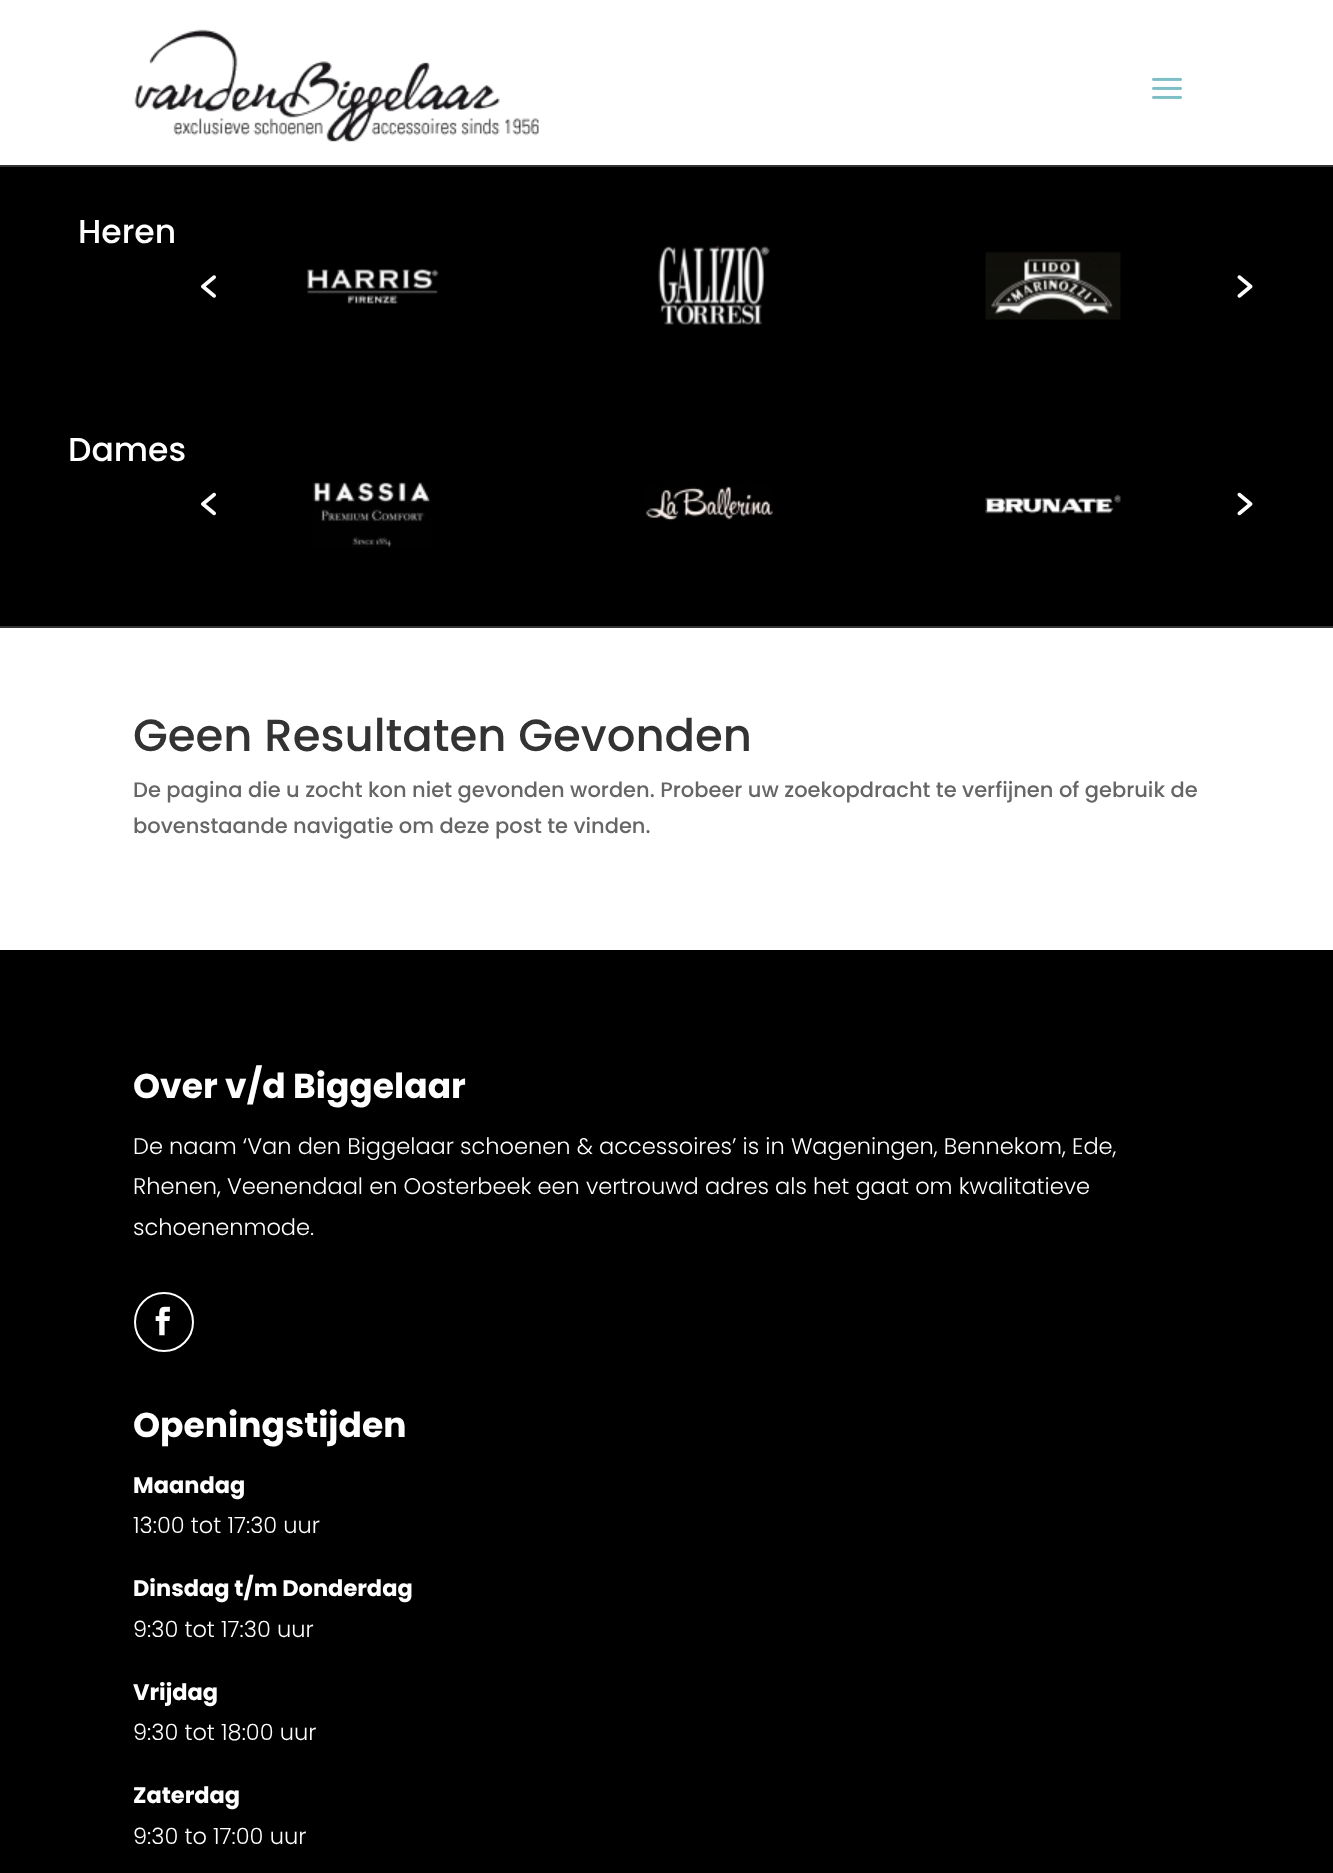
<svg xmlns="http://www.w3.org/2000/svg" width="1333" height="1873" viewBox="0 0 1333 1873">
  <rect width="100%" height="100%" fill="#fff"/>
  <path d="M0 165h1333v2H0z" fill="#333"/>
  <image x="134" y="29" width="405" height="113" href="img/1.png"/>
  <image x="1152" y="77" width="30" height="22" href="img/2.png"/>
  <path d="M0 167h1333v459H0z" fill="#000"/>
  <path d="M0 626h1333v2H0z" fill="#333"/>
  <image x="201" y="275" width="15" height="23" href="img/3.png"/>
  <image x="307" y="268" width="132" height="36" href="img/4.png"/>
  <image x="658" y="245" width="112" height="80" href="img/5.png"/>
  <image x="985" y="251" width="136" height="69" href="img/6.png"/>
  <image x="1237" y="275" width="16" height="23" href="img/7.png"/>
  <image x="201" y="492" width="15" height="24" href="img/8.png"/>
  <image x="313" y="482" width="118" height="66" href="img/9.png"/>
  <image x="645" y="486" width="128" height="35" href="img/10.png"/>
  <image x="985" y="494" width="136" height="20" href="img/11.png"/>
  <image x="1237" y="492" width="16" height="24" href="img/12.png"/>
  <path d="M0 950h1333v923H0z" fill="#000"/>
  <circle cx="164" cy="1322" r="29" fill="none" stroke="#fff" stroke-width="2"/>
  <image x="155" y="1306" width="15" height="30" href="img/13.png"/>
  <g font-family="Poppins" font-size="33" font-weight="500" fill="#fff">
    <text x="78" y="243">Heren</text>
    <text x="68" y="461">Dames</text>
  </g>
  <text x="133" y="751" font-family="Poppins" font-size="45" font-weight="500" fill="#333">Geen Resultaten Gevonden</text>
  <g font-family="Poppins" font-size="21" font-weight="500" fill="#666">
    <text x="133" y="797">De pagina die u zocht kon niet gevonden worden. Probeer uw zoekopdracht te verfijnen of gebruik de</text>
    <text x="133" y="833">bovenstaande navigatie om deze post te vinden.</text>
  </g>
  <text x="133" y="1098" font-family="Poppins" font-size="34.5" font-weight="bold" fill="#fff">Over v/d Biggelaar</text>
  <g font-family="Poppins" font-size="22.5" font-weight="300" fill="#fff">
    <text x="133" y="1154">De naam ‘Van den Biggelaar schoenen &amp; accessoires’ is in Wageningen, Bennekom, Ede,</text>
    <text x="133" y="1194">Rhenen, Veenendaal en Oosterbeek een vertrouwd adres als het gaat om kwalitatieve</text>
    <text x="133" y="1235">schoenenmode.</text>
  </g>
  <text x="133" y="1437" font-family="Poppins" font-size="34.5" font-weight="bold" fill="#fff">Openingstijden</text>
  <text x="133" y="1493" font-family="Poppins" font-size="22.5" font-weight="bold" fill="#fff">Maandag</text>
  <text x="133" y="1533" font-family="Poppins" font-size="22.5" font-weight="300" fill="#fff">13:00 tot 17:30 uur</text>
  <text x="133" y="1596" font-family="Poppins" font-size="22.5" font-weight="bold" fill="#fff">Dinsdag t/m Donderdag</text>
  <text x="133" y="1637" font-family="Poppins" font-size="22.5" font-weight="300" fill="#fff">9:30 tot 17:30 uur</text>
  <text x="133" y="1700" font-family="Poppins" font-size="22.5" font-weight="bold" fill="#fff">Vrijdag</text>
  <text x="133" y="1740" font-family="Poppins" font-size="22.5" font-weight="300" fill="#fff">9:30 tot 18:00 uur</text>
  <text x="133" y="1803" font-family="Poppins" font-size="22.5" font-weight="bold" fill="#fff">Zaterdag</text>
  <text x="133" y="1844" font-family="Poppins" font-size="22.5" font-weight="300" fill="#fff">9:30 to 17:00 uur</text>
</svg>
